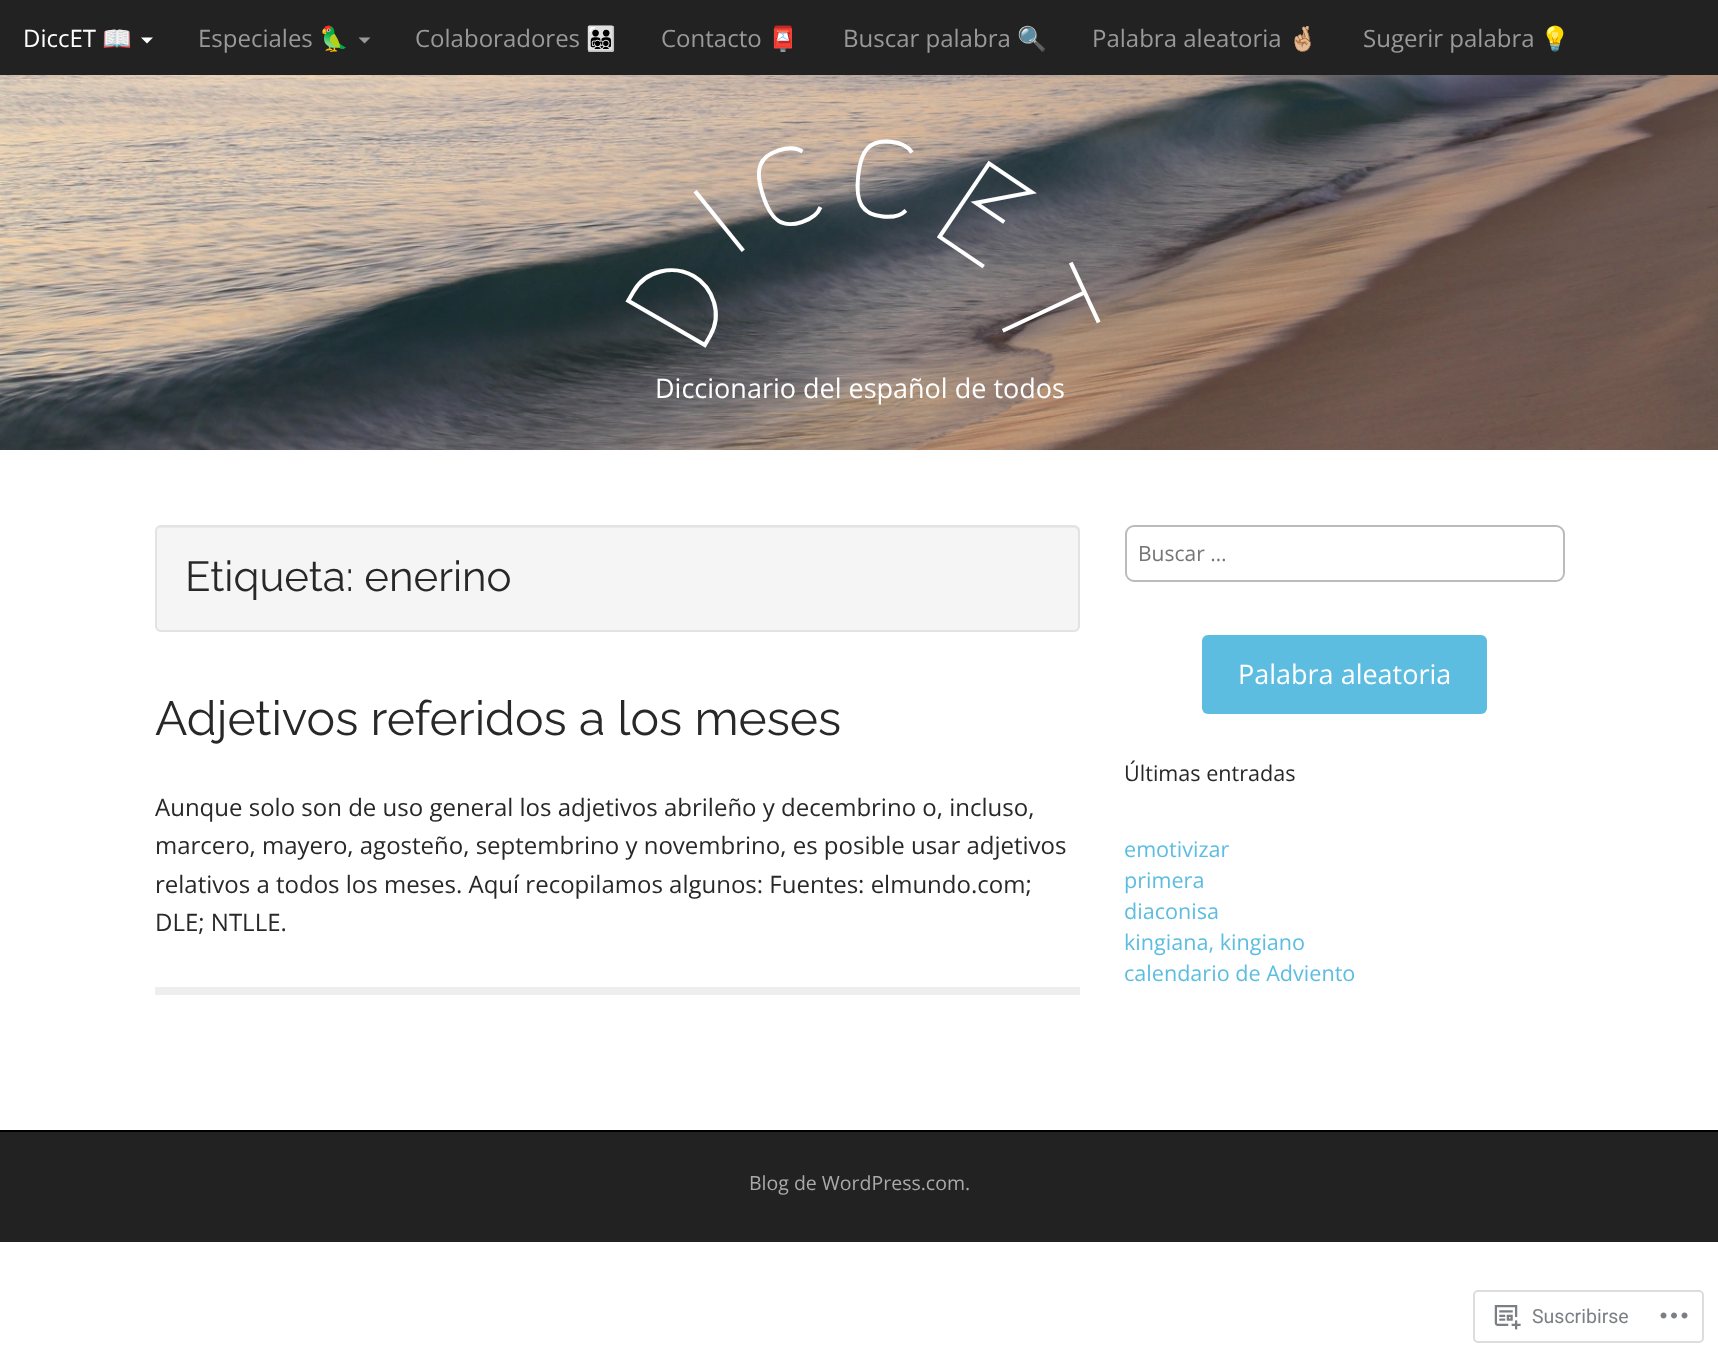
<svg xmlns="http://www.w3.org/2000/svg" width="1718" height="1357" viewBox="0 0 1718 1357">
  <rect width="100%" height="100%" fill="#fff"/>
  <path d="M0 0h1718v75H0z" fill="#222"/>
  <path d="M141 37.5H153L147 43.5Z" fill="#fff"/>
  <path d="M358.5 37.5H370.5L364.5 43.5Z" fill="#999"/>
  <image x="0" y="75" width="1718" height="375" href="img/1.png"/>
  <rect x="155" y="525" width="925" height="107" rx="6" fill="#f5f5f5"/>
  <path d="M160 528H1074C1076 528 1078 530 1078 532V628C1079 627 1079 626 1079 625V532C1079 529 1077 527 1074 527H161C158 527 156 529 156 532C156 530 158 528 160 528Z" fill="#e9e9e9"/>
  <rect x="156" y="526" width="923" height="105" rx="5" fill="none" stroke="#e3e3e3" stroke-width="2"/>
  <path d="M155 987h925v8H155z" fill="#eee"/>
  <rect x="1126" y="526" width="438" height="55" rx="8" fill="none" stroke="#bbb" stroke-width="2"/>
  <rect x="1202" y="635" width="285" height="79" rx="6" fill="#5cbde0"/>
  <path d="M0 1132h1718v110H0z" fill="#222"/>
  <path d="M0 1130h1718v2H0z" fill="#000"/>
  <rect x="1474" y="1291" width="229" height="51" rx="4" fill="none" stroke="#dddddf" stroke-width="2"/>
  <image x="1494" y="1305" width="27" height="25" href="img/2.png"/>
  <image x="1660" y="1312" width="28" height="7" href="img/3.png"/>
  <text x="23" y="47" font-family="Open Sans" font-size="24" fill="#fff">DiccET</text>
  <text x="102" y="47" font-family="Noto Color Emoji" font-size="24" fill="#fff">📖</text>
  <text x="198" y="47" font-family="Open Sans" font-size="24" fill="#999">Especiales</text>
  <text x="319" y="47" font-family="Noto Color Emoji" font-size="24" fill="#999">🦜</text>
  <text x="415" y="47" font-family="Open Sans" font-size="24" fill="#999">Colaboradores</text>
  <text x="586" y="47" font-family="Noto Color Emoji" font-size="24" fill="#999">👨‍👨‍👧‍👦</text>
  <text x="661" y="47" font-family="Open Sans" font-size="24" fill="#999">Contacto</text>
  <text x="768" y="47" font-family="Noto Color Emoji" font-size="24" fill="#999">📮</text>
  <text x="843" y="47" font-family="Open Sans" font-size="24" fill="#999">Buscar palabra</text>
  <text x="1017" y="47" font-family="Noto Color Emoji" font-size="24" fill="#999">🔍</text>
  <text x="1092" y="47" font-family="Open Sans" font-size="24" fill="#999">Palabra aleatoria</text>
  <text x="1288" y="47" font-family="Noto Color Emoji" font-size="24" fill="#999">🤞🏼</text>
  <text x="1363" y="47" font-family="Open Sans" font-size="24" fill="#999">Sugerir palabra</text>
  <text x="1540" y="47" font-family="Noto Color Emoji" font-size="24" fill="#999">💡</text>
  <g font-family="Megrim" font-size="132" font-weight="500" fill="#fff">
    <text x="732" y="260" transform="rotate(-39 732 260)">i</text>
    <text x="764" y="235" transform="rotate(-18 764 235)">c</text>
    <text x="843" y="213" transform="rotate(6 843 213)">c</text>
    <text x="926" y="230" transform="rotate(34 926 230)">E</text>
    <text x="699" y="359" transform="rotate(-60 699 359)">D</text>
    <text x="988" y="299" transform="rotate(65 988 299)">T</text>
  </g>
  <text x="655" y="398" font-family="Open Sans" font-size="27" fill="#fff">Diccionario del español de todos</text>
  <text x="185" y="591" font-family="Raleway" font-size="42" font-weight="100" fill="#282828">Etiqueta: enerino</text>
  <text x="155" y="735" font-family="Raleway" font-size="48" font-weight="100" fill="#282828">Adjetivos referidos a los meses</text>
  <g font-family="Open Sans" font-size="24" fill="#282828">
    <text x="155" y="816">Aunque solo son de uso general los adjetivos abrileño y decembrino o, incluso,</text>
    <text x="155" y="854">marcero, mayero, agosteño, septembrino y novembrino, es posible usar adjetivos</text>
    <text x="155" y="893">relativos a todos los meses. Aquí recopilamos algunos: Fuentes: elmundo.com;</text>
    <text x="155" y="931">DLE; NTLLE.</text>
  </g>
  <text x="1138" y="561" font-family="Open Sans" font-size="21" fill="#757575">Buscar …</text>
  <text x="1238" y="684" font-family="Open Sans" font-size="27" fill="#fff">Palabra aleatoria</text>
  <text x="1124" y="781" font-family="Open Sans" font-size="21.6" fill="#282828">Últimas entradas</text>
  <g font-family="Open Sans" font-size="21.6" fill="#5cbde0">
    <text x="1124" y="857">emotivizar</text>
    <text x="1124" y="888">primera</text>
    <text x="1124" y="919">diaconisa</text>
    <text x="1124" y="950">kingiana, kingiano</text>
    <text x="1124" y="981">calendario de Adviento</text>
  </g>
  <text x="749" y="1190" font-family="Open Sans" font-size="19.5" fill="#aaa">Blog de WordPress.com.</text>
  <text x="1532" y="1323" font-family="Roboto" font-size="19.5" fill="#7b7f85">Suscribirse</text>
</svg>
